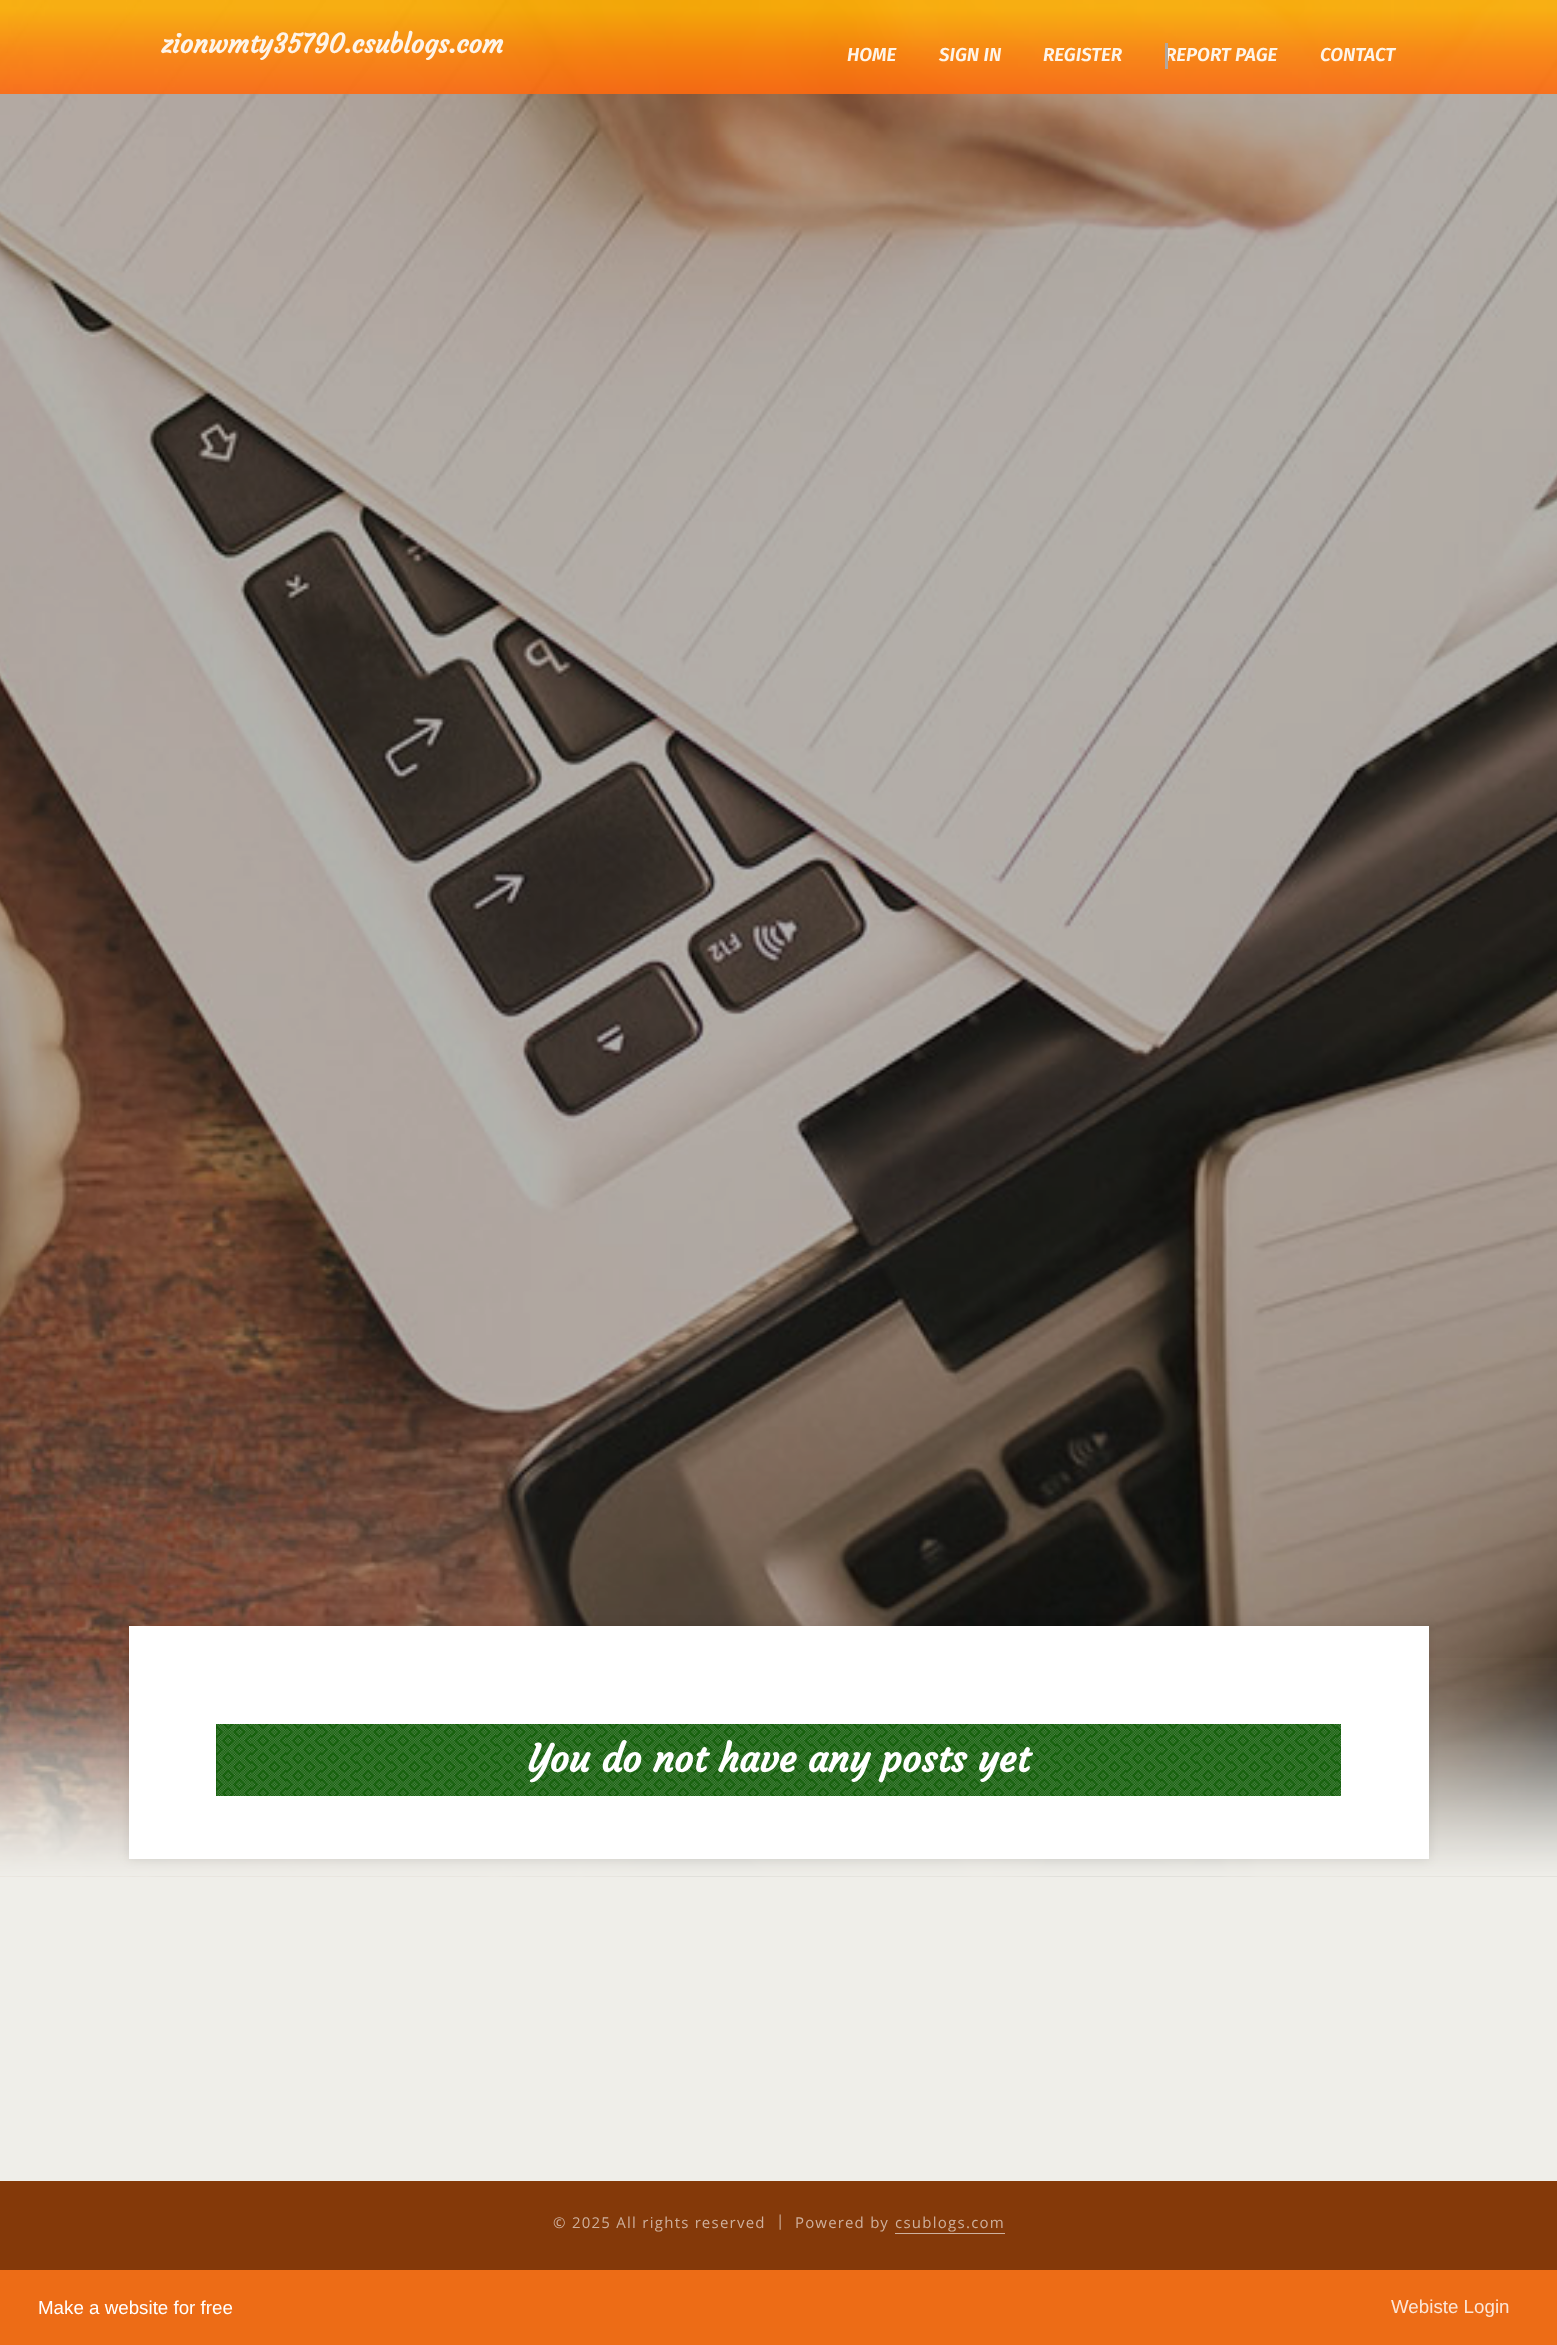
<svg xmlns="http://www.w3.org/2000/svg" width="1557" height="2345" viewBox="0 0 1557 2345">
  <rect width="100%" height="100%" fill="#efeee9"/>
  <image x="0" y="0" width="1557" height="1877" href="img/1.png"/>
  <image x="0" y="1658" width="1557" height="218" href="img/2.png"/>
  <path d="M129 1626h1300v233H129z" fill="#0000001a" filter="blur(6px)"/>
  <path d="M129 1626h1300v233H129z" fill="#fff"/>
  <path d="M216 1724h1125v72H216z" fill="#0b5a00"/>
  <image x="216" y="1724" width="1125" height="72" href="img/3.png"/>
  <path d="M0 2181h1557v89H0z" fill="#843909"/>
  <path d="M895 2233h110v1H895z" fill="#ceb09d"/>
  <path d="M0 2270h1557v75H0z" fill="#ed6c16"/>
  <text x="161" y="53" font-family="Courgette" font-size="26.25" font-weight="bold" fill="#fef4e8">zionwmty35790.csublogs.com</text>
  <g font-family="Fira Sans" font-size="18.75" font-weight="600" font-style="italic" fill="#fef4e8">
    <text x="847" y="61">HOME</text>
    <text x="939" y="61">SIGN IN</text>
    <text x="1043" y="61">REGISTER</text>
    <text x="1165" y="61">REPORT PAGE</text>
  </g>
  <path d="M1165 43h3v26H1165z" fill="#b2a79d"/>
  <text x="1320" y="61" font-family="Fira Sans" font-size="18.75" font-weight="600" font-style="italic" fill="#fef4e8">CONTACT</text>
  <text x="528" y="1772" font-family="Courgette" font-size="37.5" font-weight="bold" fill="#fff">You do not have any posts yet</text>
  <g font-family="Open Sans" font-size="15" letter-spacing="1.25" fill="#ceb09d">
    <text x="553" y="2228">© 2025 All rights reserved</text>
    <text x="776" y="2226">|</text>
    <text x="795" y="2228">Powered by</text>
    <text x="895" y="2228">csublogs.com</text>
  </g>
  <text x="38" y="2314" font-family="Liberation Sans" font-size="18.75" fill="#fff">Make a website for free</text>
  <text x="1391" y="2313" font-family="Liberation Sans" font-size="18.75" fill="#fce6d7">Webiste Login</text>
</svg>
